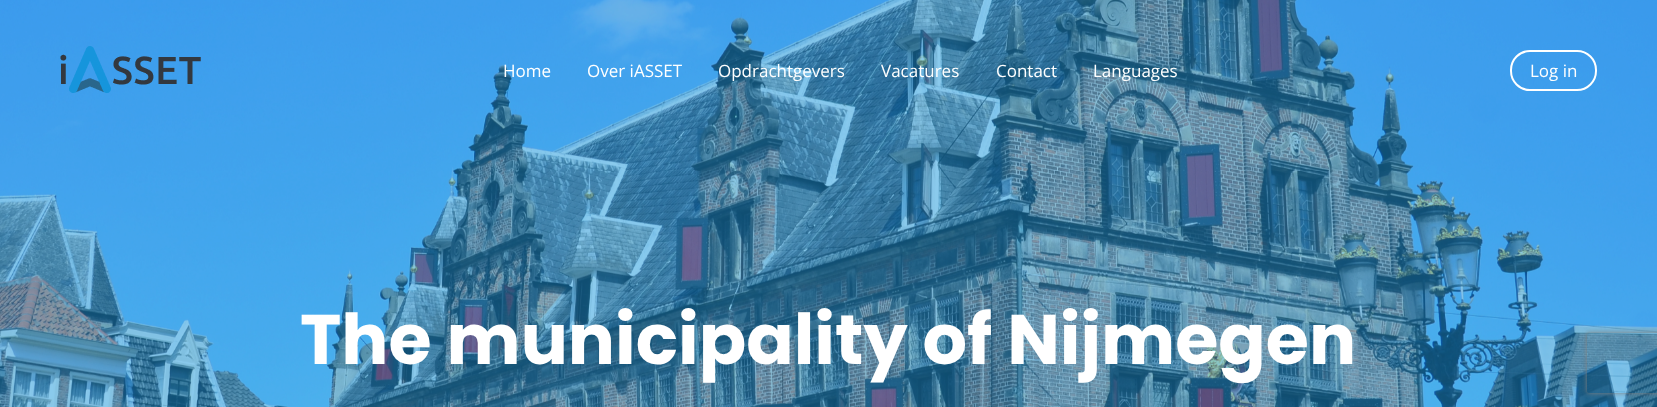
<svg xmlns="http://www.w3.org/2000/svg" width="1657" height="407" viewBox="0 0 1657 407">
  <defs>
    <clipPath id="clip1"><path d="M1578 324H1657V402H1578ZM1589 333H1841C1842 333 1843 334 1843 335V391C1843 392 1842 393 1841 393H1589C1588 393 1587 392 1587 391V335C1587 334 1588 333 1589 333Z" clip-rule="evenodd"/></clipPath>
  </defs>
  <rect width="100%" height="100%" fill="#fff"/>
  <image x="0" y="0" width="1657" height="407" href="img/2.png"/>
  <image x="60" y="46" width="141" height="47" href="img/1.png"/>
  <rect x="1511" y="51" width="85" height="39" rx="19" fill="none" stroke="#fff" stroke-width="2"/>
  <g clip-path="url(#clip1)">
    <rect x="1587" y="333" width="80" height="60" rx="2" fill="#808080" filter="blur(2.5px)"/>
  </g>
  <g font-family="Open Sans" font-size="17" fill="#fff">
    <text x="503" y="77">Home</text>
    <text x="587" y="77">Over iASSET</text>
    <text x="718" y="77">Opdrachtgevers</text>
    <text x="881" y="77">Vacatures</text>
    <text x="996" y="77">Contact</text>
    <text x="1093" y="77">Languages</text>
    <text x="1530" y="77">Log in</text>
  </g>
  <text x="300" y="364" font-family="Poppins" font-size="70" font-weight="bold" fill="#fff">The municipality of Nijmegen</text>
</svg>
